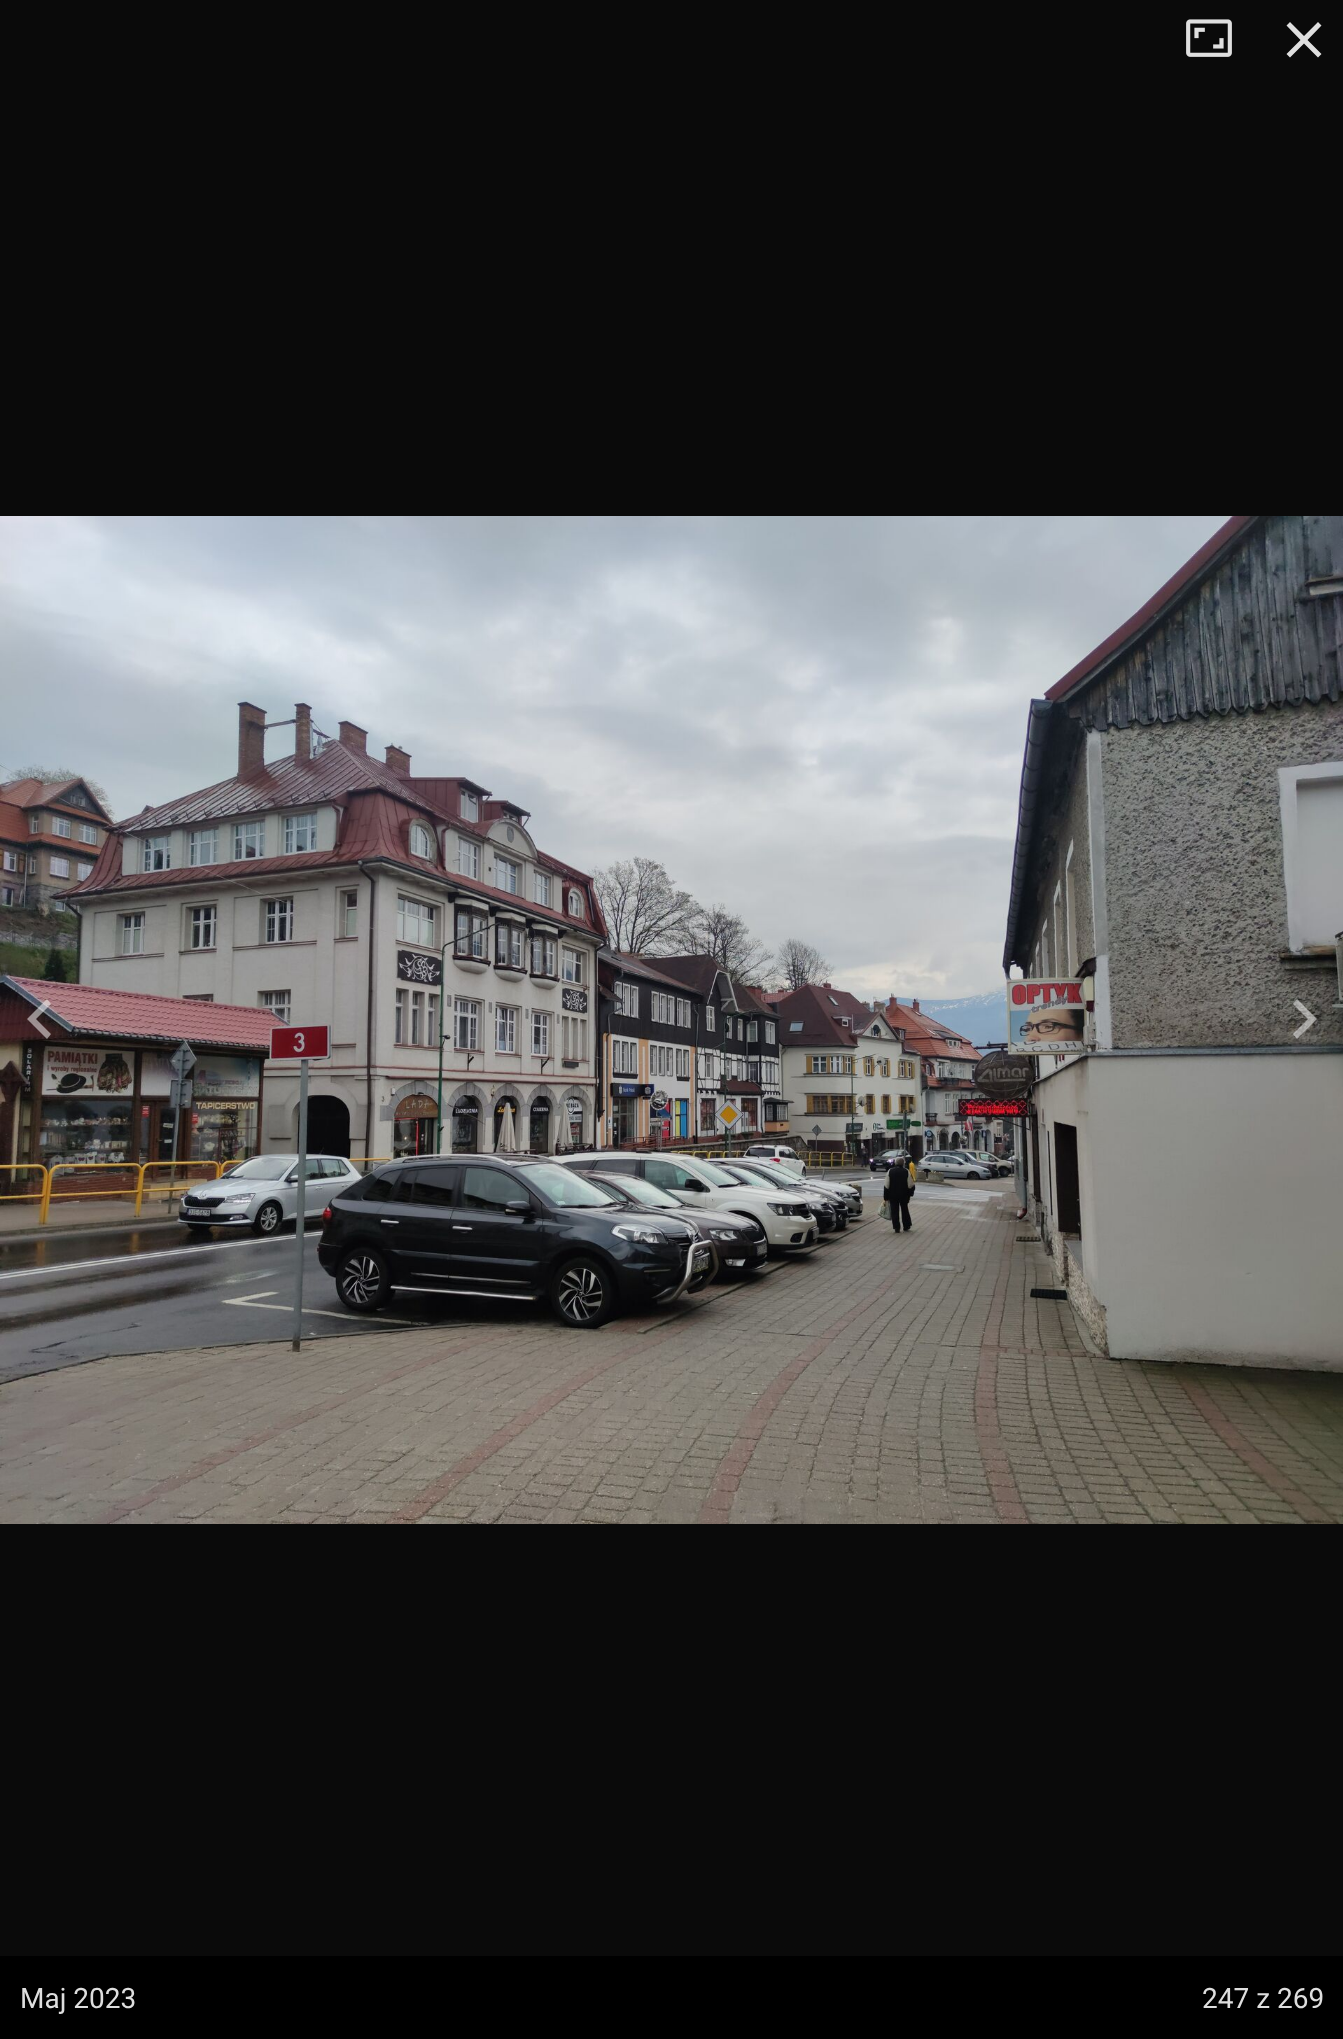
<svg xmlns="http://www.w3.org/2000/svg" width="1343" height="2039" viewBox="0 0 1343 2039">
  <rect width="100%" height="100%" fill="#0a0a0a"/>
  <image x="1186" y="19" width="46" height="38" href="img/1.png"/>
  <path d="M1321.5 25.5L1318 22L1304 36L1290 22L1286.5 25.5L1300.5 40L1286.5 54L1290 57.5L1304 43.5L1318 57.5L1321.5 54L1307.5 40Z" fill="#dfdfdf"/>
  <image x="0" y="516" width="1343" height="1008" href="img/2.png"/>
  <path d="M51 1004L47 999L27 1019L47 1039L51 1034L36 1019Z" fill="#ffffff80"/>
  <path d="M1297 999L1293 1004L1308 1019L1293 1034L1297 1039L1317 1019Z" fill="#ffffff80"/>
  <path d="M0 1956h1343v83H0z" fill="#000"/>
  <g font-family="Roboto" font-size="28" fill="#dedede">
    <text x="20" y="2008">Maj 2023</text>
    <text x="1202" y="2008">247 z 269</text>
  </g>
</svg>
